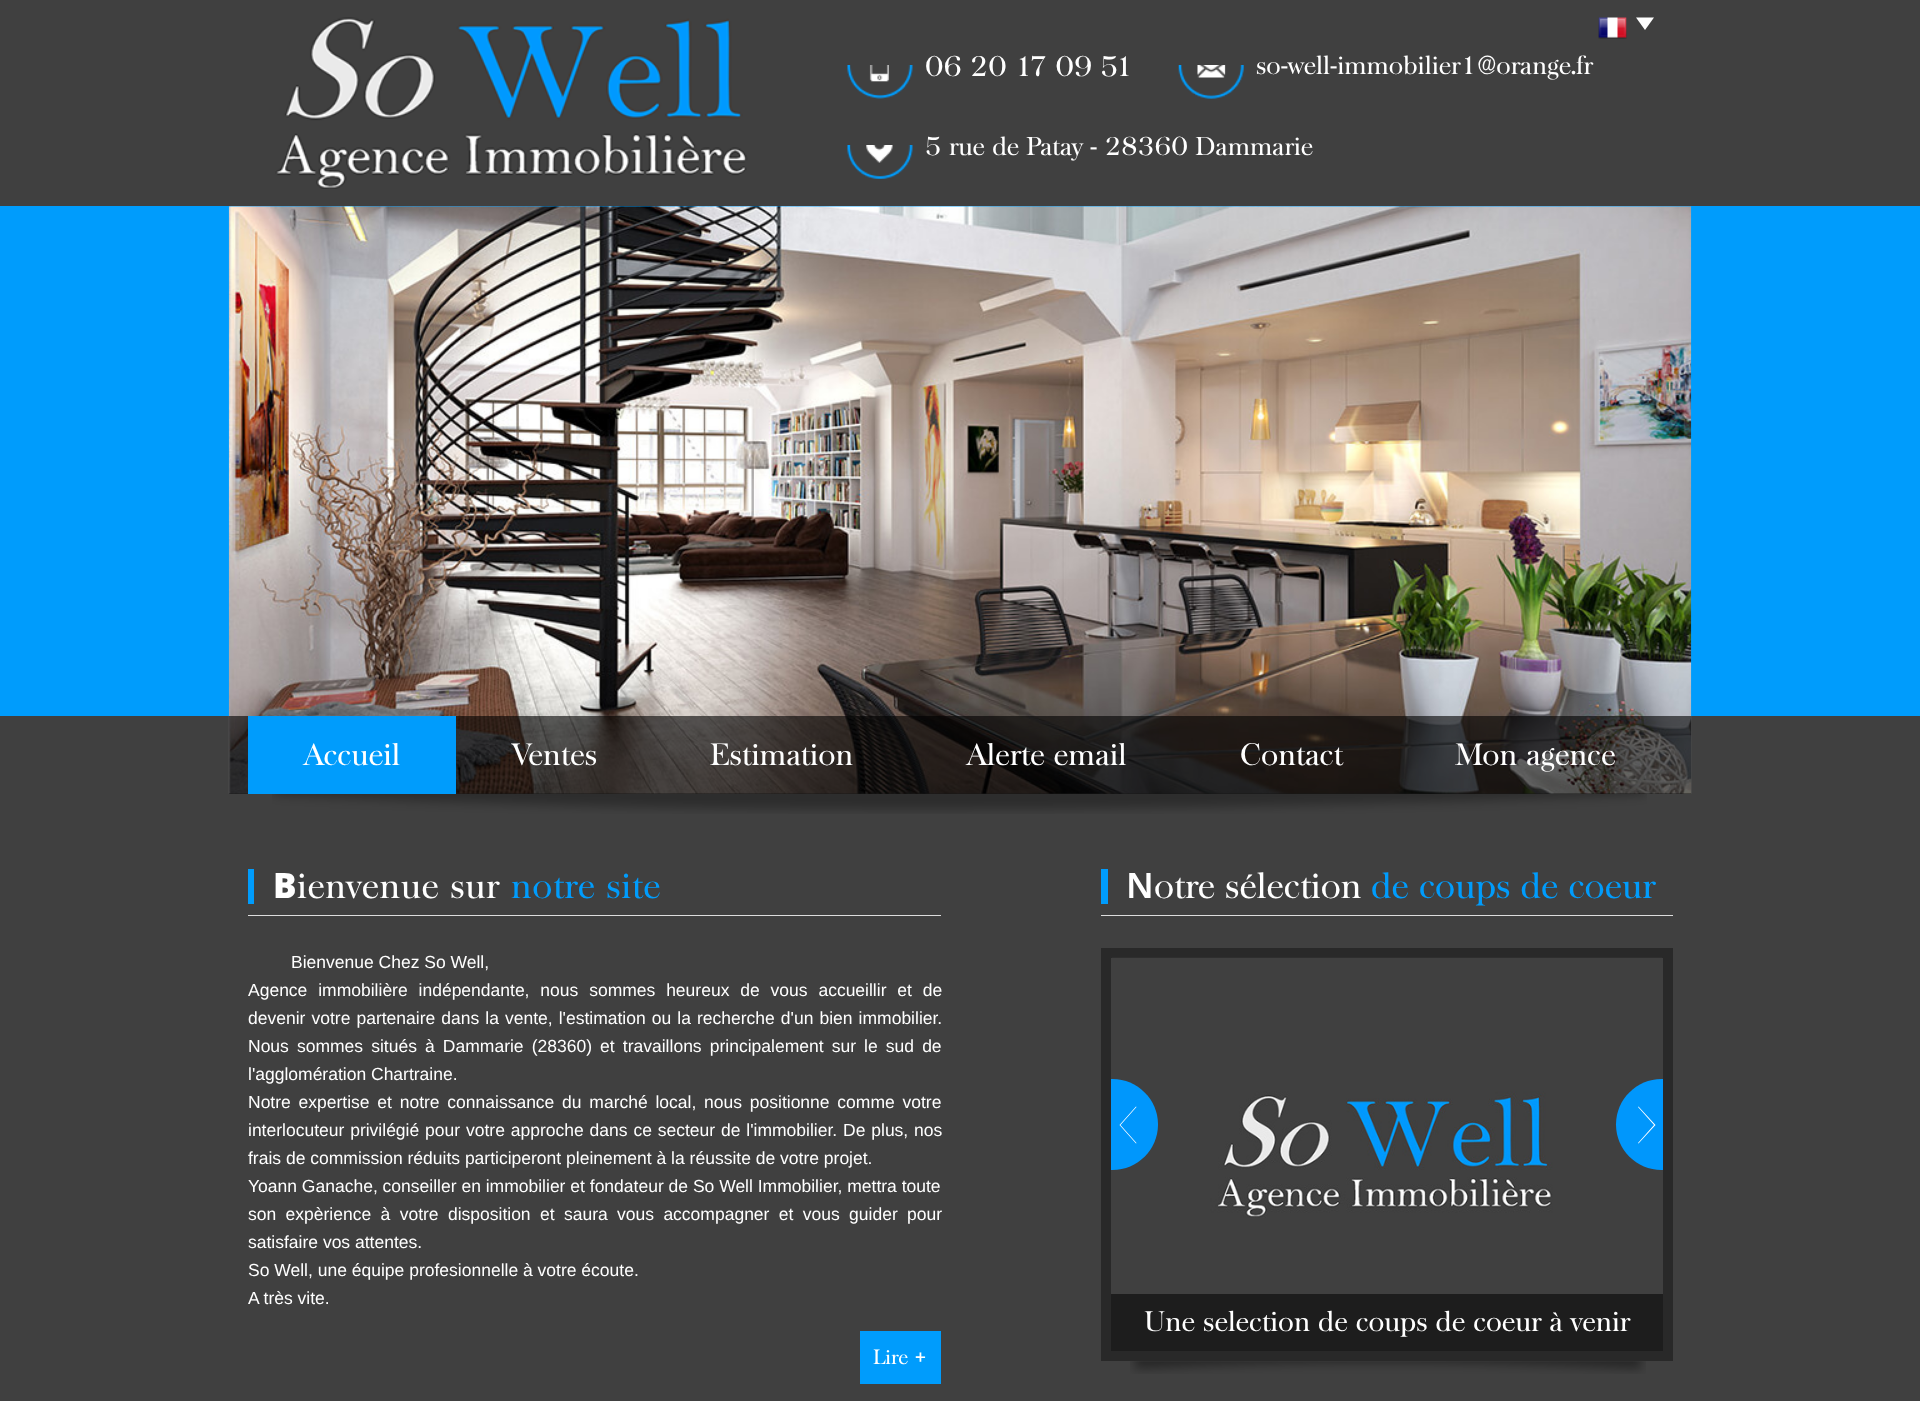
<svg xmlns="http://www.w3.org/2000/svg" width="1920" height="1401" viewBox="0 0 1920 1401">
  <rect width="100%" height="100%" fill="#404040"/>
  <path d="M0 206h1920v510H0z" fill="#009cfc"/>
  <image x="275" y="17" width="473" height="172" href="img/1.png"/>
  <image x="1598" y="17" width="29" height="22" href="img/2.png"/>
  <path d="M1636 17.5H1654L1645 30Z" fill="#fff"/>
  <image x="847" y="65" width="66" height="34" href="img/3.png"/>
  <image x="1178" y="65" width="66" height="34" href="img/4.png"/>
  <image x="847" y="145" width="66" height="34" href="img/5.png"/>
  <image x="272" y="793" width="1375" height="21" href="img/7.png"/>
  <image x="228" y="206" width="1464" height="588" href="img/6.png"/>
  <path d="M229 716h1462v78H229z" fill="#00000099"/>
  <path d="M248 716h208v78H248z" fill="#009cfc"/>
  <path d="M248 869h6v35H248z" fill="#009cfc"/>
  <path d="M248 915h693v1H248z" fill="#ddd"/>
  <path d="M860 1331h81v53H860z" fill="#009cfc"/>
  <path d="M1101 869h7v35H1101z" fill="#009cfc"/>
  <path d="M1101 915h572v1H1101z" fill="#ddd"/>
  <path d="M1106 953h562v403H1106z" fill="none" stroke="#292929" stroke-width="10"/>
  <image x="1112" y="957" width="550" height="261" href="img/8.png"/>
  <path d="M1111 1079H1112.5C1137.5 1079 1158 1099.5 1158 1124.5C1158 1149.5 1137.5 1170 1112.5 1170H1111Z" fill="#0097fc"/>
  <path d="M1119.5 1125L1136 1106.5L1136.5 1107L1120.5 1125L1136.5 1143L1136 1143.5Z" fill="#fff"/>
  <path d="M1661.5 1079H1663V1170H1661.5C1636.5 1170 1616 1149.5 1616 1124.5C1616 1099.5 1636.5 1079 1661.5 1079Z" fill="#0097fc"/>
  <path d="M1655.5 1125L1638.5 1143.5L1638 1143L1654 1125L1638 1107L1638.5 1106.5Z" fill="#fff"/>
  <path d="M1111 1294h552v57H1111z" fill="#1d1d1d"/>
  <image x="1130" y="1361" width="516" height="13" href="img/9.png"/>
  <text x="925" y="76" font-family="Baskerville" font-size="27.5" fill="#fff">06 20 17 09 51</text>
  <g font-family="Baskerville" font-size="25" fill="#fff">
    <text x="1256" y="74">so-well-immobilier1@orange.fr</text>
    <text x="925" y="155">5 rue de Patay - 28360 Dammarie</text>
  </g>
  <g font-family="Baskerville" font-size="30" fill="#fff">
    <text x="304" y="765">Accueil</text>
    <text x="513" y="765">Ventes</text>
    <text x="710" y="765">Estimation</text>
    <text x="967" y="765">Alerte email</text>
    <text x="1240" y="765">Contact</text>
    <text x="1455" y="765">Mon agence</text>
  </g>
  <text x="273" y="898" font-family="Noto Sans" font-size="35" font-weight="900" letter-spacing="0.6" fill="#fff">B</text>
  <text x="297" y="898" font-family="Baskerville" font-size="35" letter-spacing="0.6" fill="#fff">ienvenue sur</text>
  <text x="511" y="898" font-family="Baskerville" font-size="35" letter-spacing="0.6" fill="#009cfc">notre site</text>
  <g font-family="Liberation Sans" font-size="17.5" fill="#fff">
    <text x="291" y="968">Bienvenue Chez So Well,</text>
    <text x="248" y="996" word-spacing="6">Agence immobilière indépendante, nous sommes heureux de vous accueillir et de</text>
    <text x="248" y="1024" word-spacing="1.2">devenir votre partenaire dans la vente, l'estimation ou la recherche d'un bien immobilier.</text>
    <text x="248" y="1052" word-spacing="3.25">Nous sommes situés à Dammarie (28360) et travaillons principalement sur le sud de</text>
    <text x="248" y="1080">l'agglomération Chartraine.</text>
    <text x="248" y="1108" word-spacing="2.9">Notre expertise et notre connaissance du marché local, nous positionne comme votre</text>
    <text x="248" y="1136" word-spacing="1">interlocuteur privilégié pour votre approche dans ce secteur de l'immobilier. De plus, nos</text>
    <text x="248" y="1164">frais de commission réduits participeront pleinement à la réussite de votre projet.</text>
    <text x="248" y="1192">Yoann Ganache, conseiller en immobilier et fondateur de So Well Immobilier, mettra toute</text>
    <text x="248" y="1220" word-spacing="4.5">son expèrience à votre disposition et saura vous accompagner et vous guider pour</text>
    <text x="248" y="1248">satisfaire vos attentes.</text>
    <text x="248" y="1276">So Well, une équipe profesionnelle à votre écoute.</text>
    <text x="248" y="1304">A très vite.</text>
  </g>
  <text x="873" y="1364" font-family="Baskerville" font-size="20" fill="#fff">Lire +</text>
  <text x="1126" y="898" font-family="Noto Sans" font-size="35" font-weight="600" fill="#fff">N</text>
  <text x="1154" y="898" font-family="Baskerville" font-size="35" fill="#fff">otre sélection</text>
  <text x="1371" y="898" font-family="Baskerville" font-size="35" fill="#009cfc">de coups de coeur</text>
  <text x="1144" y="1331" font-family="Baskerville" font-size="27.5" fill="#fff">Une selection de coups de coeur à venir</text>
</svg>
